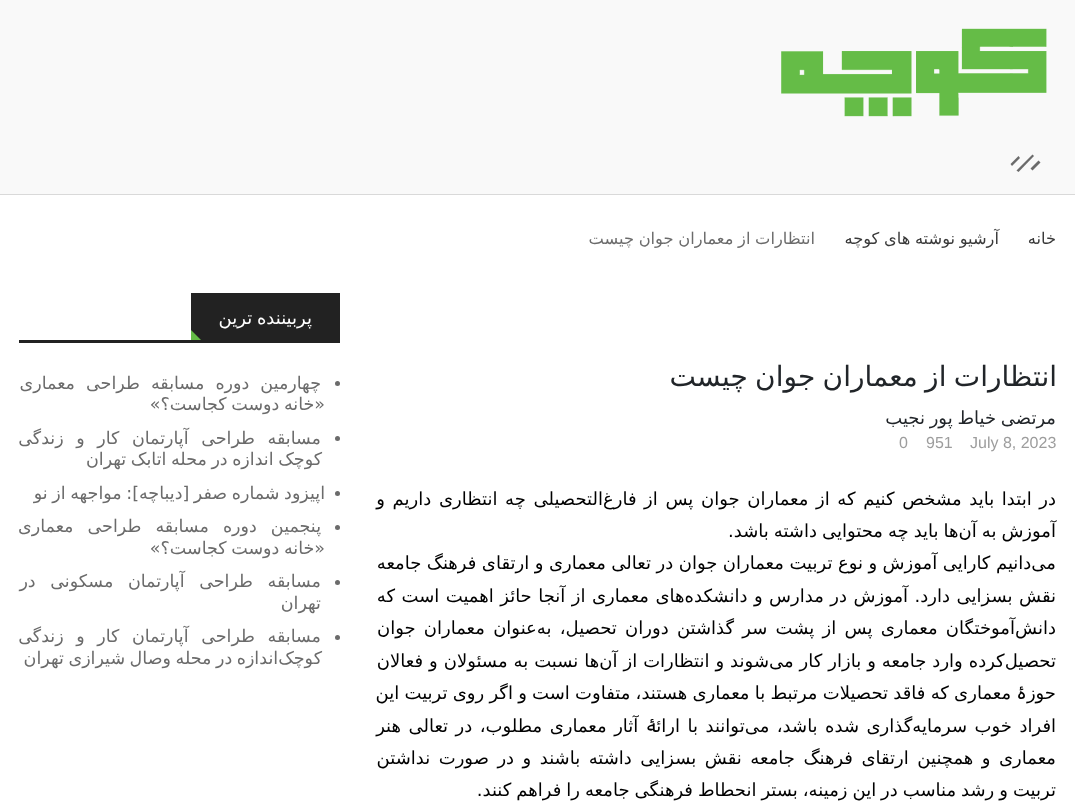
<svg xmlns="http://www.w3.org/2000/svg" width="1075" height="805" viewBox="0 0 1075 805">
  <rect width="100%" height="100%" fill="#fff"/>
  <path d="M0 194h1075v1H0z" fill="#d9d9d9"/>
  <path d="M0 0h1075v194H0z" fill="#f9f9f9"/>
  <image x="781" y="28" width="266" height="89" href="img/1.png"/>
  <path d="M1030.5 168.5L1038.5 160.5L1040.5 162.5L1032.5 170.5Z" fill="#6b6b6b"/>
  <path d="M1016.5 170.5L1032.5 154.5L1034 156L1018.5 172Z" fill="#6b6b6b"/>
  <path d="M1010.5 164L1018.5 156L1020 158L1012 166Z" fill="#6b6b6b"/>
  <path d="M19 340h321v3H19z" fill="#222"/>
  <path d="M191 293h149v47H191z" fill="#222"/>
  <path d="M191 340V330L201 340Z" fill="#64bc46"/>
  <circle cx="337.5" cy="383.5" r="2.5" fill="#6b6b6b"/>
  <circle cx="337.5" cy="438.5" r="2.5" fill="#6b6b6b"/>
  <circle cx="337.5" cy="493.5" r="2.5" fill="#6b6b6b"/>
  <circle cx="337.5" cy="527.5" r="2.5" fill="#6b6b6b"/>
  <circle cx="337.5" cy="582.5" r="2.5" fill="#6b6b6b"/>
  <circle cx="337.5" cy="637.5" r="2.5" fill="#6b6b6b"/>
  <g font-family="DejaVu Sans" font-size="16.25" direction="rtl" fill="#393939">
    <text x="1056" y="244">خانه</text>
    <text x="999" y="244" word-spacing="-0.5">آرشیو نوشته های کوچه</text>
  </g>
  <text x="815" y="244" word-spacing="-0.5" font-family="DejaVu Sans" font-size="16.25" direction="rtl" fill="#6b6b6b">انتظارات از معماران جوان چیست</text>
  <text x="1057" y="386" word-spacing="-1.5" font-family="DejaVu Sans" font-size="28" direction="rtl" fill="#212529">انتظارات از معماران جوان چیست</text>
  <text x="1056" y="424" word-spacing="-1" font-family="DejaVu Sans" font-size="18" direction="rtl" fill="#212529">مرتضی خیاط پور نجیب</text>
  <g font-family="Liberation Sans" font-size="16" fill="#9d9d9d">
    <text x="970" y="448">July 8, 2023</text>
    <text x="926" y="448">951</text>
    <text x="899" y="448">0</text>
  </g>
  <g font-family="DejaVu Sans" font-size="18" direction="rtl" fill="#000">
    <text x="1056" y="505" word-spacing="1.9">در ابتدا باید مشخص کنیم که از معماران جوان پس از فارغ‌التحصیلی چه انتظاری داریم و</text>
    <text x="1056" y="537" word-spacing="-0.75">آموزش به آن‌ها باید چه محتوایی داشته باشد.</text>
    <text x="1056" y="569" word-spacing="-0.25">می‌دانیم کارایی آموزش و نوع تربیت معماران جوان در تعالی معماری و ارتقای فرهنگ جامعه</text>
    <text x="1056" y="602" word-spacing="0.75">نقش بسزایی دارد. آموزش در مدارس و دانشکده‌های معماری از آنجا حائز اهمیت است که</text>
    <text x="1056" y="634" word-spacing="2.5">دانش‌آموختگان معماری پس از پشت سر گذاشتن دوران تحصیل، به‌عنوان معماران جوان</text>
    <text x="1056" y="667" word-spacing="0.25">تحصیل‌کرده وارد جامعه و بازار کار می‌شوند و انتظارات از آن‌ها نسبت به مسئولان و فعالان</text>
    <text x="1056" y="699" word-spacing="-0.5">حوزۀ معماری که فاقد تحصیلات مرتبط با معماری هستند، متفاوت است و اگر روی تربیت این</text>
    <text x="1056" y="732" word-spacing="1.75">افراد خوب سرمایه‌گذاری شده باشد، می‌توانند با ارائۀ آثار معماری مطلوب، در تعالی هنر</text>
    <text x="1056" y="764" word-spacing="2.75">معماری و همچنین ارتقای فرهنگ جامعه نقش بسزایی داشته باشند و در صورت نداشتن</text>
    <text x="1056" y="796" word-spacing="-0.75">تربیت و رشد مناسب در این زمینه، بستر انحطاط فرهنگی جامعه را فراهم کنند.</text>
  </g>
  <text x="312" y="324" word-spacing="-1" font-family="DejaVu Sans" font-size="18" direction="rtl" fill="#fff">پربیننده ترین</text>
  <g font-family="DejaVu Sans" font-size="17.5" direction="rtl" fill="#6b6b6b">
    <text x="321" y="389" word-spacing="5.5">چهارمین دوره مسابقه طراحی معماری</text>
    <text x="325" y="410" word-spacing="-1">«خانه دوست کجاست؟»</text>
    <text x="321" y="444" word-spacing="7">مسابقه طراحی آپارتمان کار و زندگی</text>
    <text x="322" y="465" word-spacing="-1">کوچک اندازه در محله اتابک تهران</text>
    <text x="325" y="499" word-spacing="-1">اپیزود شماره صفر [دیباچه]: مواجهه از نو</text>
    <text x="321" y="532" word-spacing="8.5">پنجمین دوره مسابقه طراحی معماری</text>
    <text x="325" y="554" word-spacing="-1">«خانه دوست کجاست؟»</text>
    <text x="321" y="587" word-spacing="9">مسابقه طراحی آپارتمان مسکونی در</text>
    <text x="321" y="609">تهران</text>
    <text x="321" y="642" word-spacing="7">مسابقه طراحی آپارتمان کار و زندگی</text>
    <text x="322" y="664" word-spacing="-1">کوچک‌اندازه در محله وصال شیرازی تهران</text>
  </g>
</svg>
